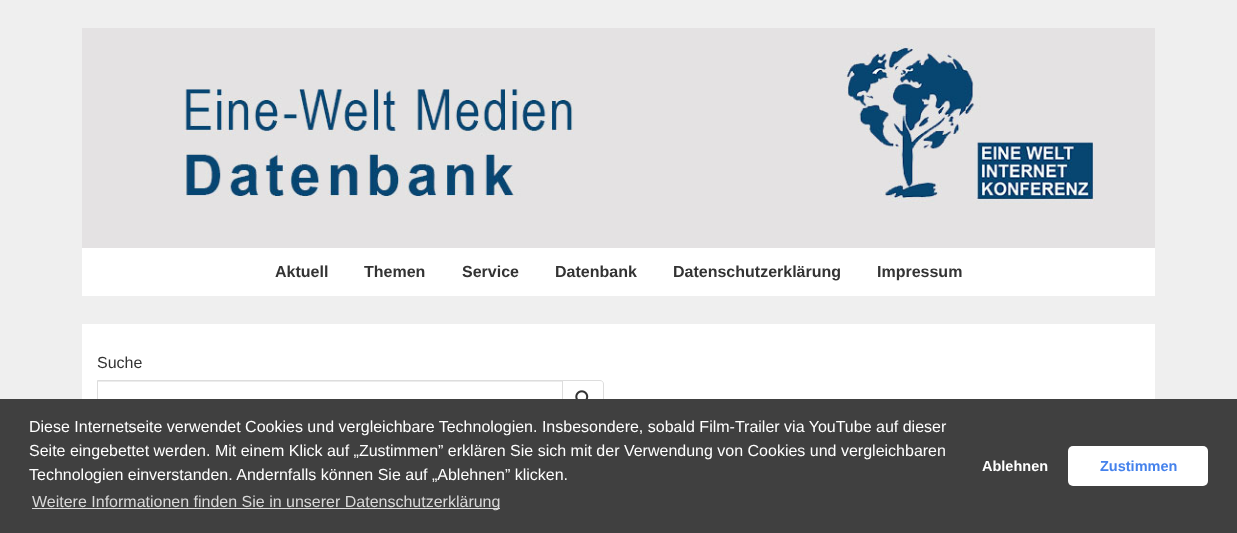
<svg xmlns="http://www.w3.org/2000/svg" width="1237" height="533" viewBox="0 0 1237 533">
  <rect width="100%" height="100%" fill="#efefef"/>
  <path d="M82 28h1073v220H82z" fill="#e4e2e3"/>
  <image x="182" y="89" width="392" height="108" href="img/1.png"/>
  <image x="842" y="43" width="253" height="161" href="img/2.png"/>
  <path d="M82 248h1073v48H82z" fill="#fff"/>
  <path d="M82 324h1073v75H82z" fill="#fff"/>
  <path d="M98 381h464v1H98z" fill="#ececec"/>
  <path d="M562.5 380.5H600C602 380.5 603.5 382 603.5 384V417C603.5 419 602 420.5 600 420.5H562.5Z" fill="none" stroke="#ddd"/>
  <path d="M97.5 380.5h465v39H97.5z" fill="none" stroke="#ddd"/>
  <image x="575" y="390" width="14" height="9" href="img/3.png"/>
  <path d="M0 399h1237v134H0z" fill="#404040"/>
  <path d="M32 508h468v1H32z" fill="#d9d9d9"/>
  <rect x="1068" y="446" width="140" height="40" rx="5" fill="#fff"/>
  <g font-family="Liberation Sans" font-size="16" font-weight="bold" fill="#333">
    <text x="275" y="277">Aktuell</text>
    <text x="364" y="277">Themen</text>
    <text x="462" y="277">Service</text>
    <text x="555" y="277">Datenbank</text>
    <text x="673" y="277">Datenschutzerklärung</text>
    <text x="877" y="277">Impressum</text>
  </g>
  <text x="97" y="368" font-family="Liberation Sans" font-size="16" fill="#333">Suche</text>
  <g font-family="Liberation Sans" font-size="16" fill="#fff">
    <text x="29" y="432">Diese Internetseite verwendet Cookies und vergleichbare Technologien. Insbesondere, sobald Film-Trailer via YouTube auf dieser</text>
    <text x="29" y="456">Seite eingebettet werden. Mit einem Klick auf „Zustimmen” erklären Sie sich mit der Verwendung von Cookies und vergleichbaren</text>
    <text x="29" y="480">Technologien einverstanden. Andernfalls können Sie auf „Ablehnen” klicken.</text>
  </g>
  <text x="32" y="507" font-family="Liberation Sans" font-size="16" fill="#d9d9d9">Weitere Informationen finden Sie in unserer Datenschutzerklärung</text>
  <text x="982" y="471" font-family="Liberation Sans" font-size="14.5" font-weight="bold" fill="#fff">Ablehnen</text>
  <text x="1100" y="471" font-family="Liberation Sans" font-size="14.5" font-weight="bold" fill="#4582ec">Zustimmen</text>
</svg>
